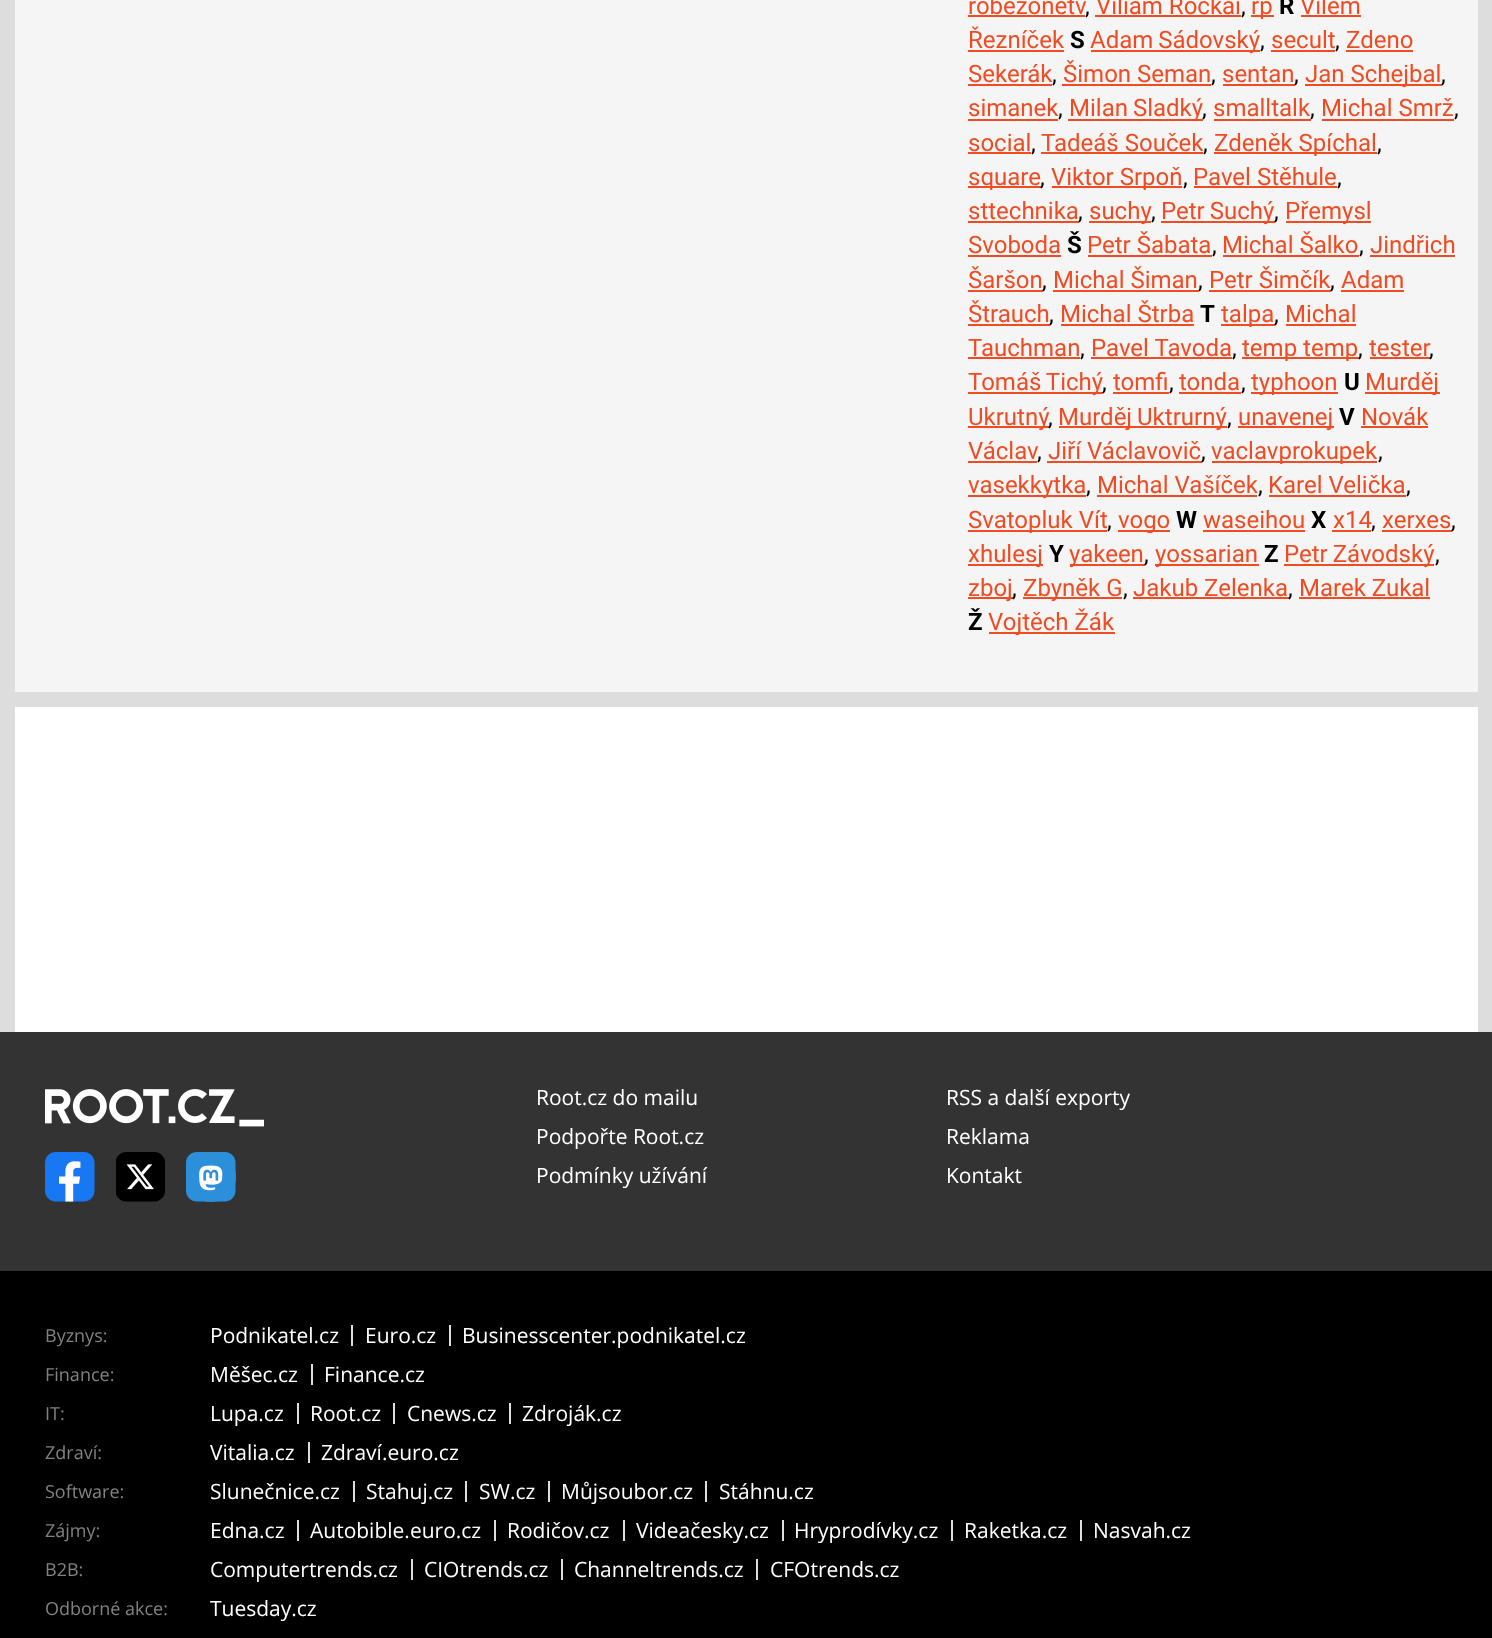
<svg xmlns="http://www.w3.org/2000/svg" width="1492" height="1638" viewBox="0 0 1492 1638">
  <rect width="100%" height="100%" fill="#ddd"/>
  <path d="M15 0h1463v692H15z" fill="#f5f5f5"/>
  <path d="M968 15h117v2H968z" fill="#f04c23"/>
  <path d="M1095 15h146v2H1095z" fill="#f04c23"/>
  <path d="M1251 15h23v2H1251z" fill="#f04c23"/>
  <path d="M1301 15h60v2H1301z" fill="#f04c23"/>
  <path d="M968 50h96v2H968z" fill="#f04c23"/>
  <path d="M1091 50h169v2H1091z" fill="#f04c23"/>
  <path d="M1271 50h64v2H1271z" fill="#f04c23"/>
  <path d="M1346 50h67v2H1346z" fill="#f04c23"/>
  <path d="M968 84h84v2H968z" fill="#f04c23"/>
  <path d="M1062 84h149v2H1062z" fill="#f04c23"/>
  <path d="M1223 84h72v2H1223z" fill="#f04c23"/>
  <path d="M1305 84h137v2H1305z" fill="#f04c23"/>
  <path d="M968 119h90v2H968z" fill="#f04c23"/>
  <path d="M1068 119h135v2H1068z" fill="#f04c23"/>
  <path d="M1214 119h97v2H1214z" fill="#f04c23"/>
  <path d="M1322 119h132v2H1322z" fill="#f04c23"/>
  <path d="M968 152h63v2H968z" fill="#f04c23"/>
  <path d="M1041 152h162v2H1041z" fill="#f04c23"/>
  <path d="M1214 152h163v2H1214z" fill="#f04c23"/>
  <path d="M968 186h73v2H968z" fill="#f04c23"/>
  <path d="M1052 186h130v2H1052z" fill="#f04c23"/>
  <path d="M1194 186h143v2H1194z" fill="#f04c23"/>
  <path d="M968 221h111v2H968z" fill="#f04c23"/>
  <path d="M1089 221h62v2H1089z" fill="#f04c23"/>
  <path d="M1161 221h114v2H1161z" fill="#f04c23"/>
  <path d="M1286 221h85v2H1286z" fill="#f04c23"/>
  <path d="M968 255h93v2H968z" fill="#f04c23"/>
  <path d="M1088 255h124v2H1088z" fill="#f04c23"/>
  <path d="M1223 255h136v2H1223z" fill="#f04c23"/>
  <path d="M1370 255h85v2H1370z" fill="#f04c23"/>
  <path d="M968 290h75v2H968z" fill="#f04c23"/>
  <path d="M1053 290h146v2H1053z" fill="#f04c23"/>
  <path d="M1209 290h122v2H1209z" fill="#f04c23"/>
  <path d="M1341 290h63v2H1341z" fill="#f04c23"/>
  <path d="M968 324h82v2H968z" fill="#f04c23"/>
  <path d="M1061 324h133v2H1061z" fill="#f04c23"/>
  <path d="M1221 324h54v2H1221z" fill="#f04c23"/>
  <path d="M1286 324h70v2H1286z" fill="#f04c23"/>
  <path d="M968 357h112v2H968z" fill="#f04c23"/>
  <path d="M1091 357h141v2H1091z" fill="#f04c23"/>
  <path d="M1242 357h117v2H1242z" fill="#f04c23"/>
  <path d="M1370 357h60v2H1370z" fill="#f04c23"/>
  <path d="M968 392h135v2H968z" fill="#f04c23"/>
  <path d="M1113 392h56v2H1113z" fill="#f04c23"/>
  <path d="M1179 392h62v2H1179z" fill="#f04c23"/>
  <path d="M1251 392h87v2H1251z" fill="#f04c23"/>
  <path d="M1365 392h75v2H1365z" fill="#f04c23"/>
  <path d="M968 426h81v2H968z" fill="#f04c23"/>
  <path d="M1059 426h168v2H1059z" fill="#f04c23"/>
  <path d="M1238 426h96v2H1238z" fill="#f04c23"/>
  <path d="M1361 426h67v2H1361z" fill="#f04c23"/>
  <path d="M968 461h69v2H968z" fill="#f04c23"/>
  <path d="M1047 461h155v2H1047z" fill="#f04c23"/>
  <path d="M1212 461h165v2H1212z" fill="#f04c23"/>
  <path d="M968 495h118v2H968z" fill="#f04c23"/>
  <path d="M1097 495h160v2H1097z" fill="#f04c23"/>
  <path d="M1269 495h137v2H1269z" fill="#f04c23"/>
  <path d="M968 530h139v2H968z" fill="#f04c23"/>
  <path d="M1118 530h52v2H1118z" fill="#f04c23"/>
  <path d="M1203 530h102v2H1203z" fill="#f04c23"/>
  <path d="M1332 530h39v2H1332z" fill="#f04c23"/>
  <path d="M1382 530h70v2H1382z" fill="#f04c23"/>
  <path d="M968 564h75v2H968z" fill="#f04c23"/>
  <path d="M1070 564h75v2H1070z" fill="#f04c23"/>
  <path d="M1155 564h104v2H1155z" fill="#f04c23"/>
  <path d="M1284 564h150v2H1284z" fill="#f04c23"/>
  <path d="M968 597h45v2H968z" fill="#f04c23"/>
  <path d="M1023 597h99v2H1023z" fill="#f04c23"/>
  <path d="M1133 597h156v2H1133z" fill="#f04c23"/>
  <path d="M1299 597h131v2H1299z" fill="#f04c23"/>
  <path d="M989 632h126v2H989z" fill="#f04c23"/>
  <path d="M15 707h1463v325H15z" fill="#fff"/>
  <path d="M0 1271h1492v367H0z" fill="#000"/>
  <path d="M0 1032h1492v239H0z" fill="#333"/>
  <image x="45" y="1089" width="219" height="38" href="img/1.png"/>
  <image x="45" y="1152" width="50" height="50" href="img/2.png"/>
  <image x="116" y="1152" width="49" height="50" href="img/3.png"/>
  <image x="186" y="1152" width="50" height="50" href="img/4.png"/>
  <path d="M351 1325h2v21H351z" fill="#ddd"/>
  <path d="M449 1325h2v21H449z" fill="#ddd"/>
  <path d="M311 1364h2v21H311z" fill="#ddd"/>
  <path d="M297 1403h2v21H297z" fill="#ddd"/>
  <path d="M393 1403h2v21H393z" fill="#ddd"/>
  <path d="M509 1403h2v21H509z" fill="#ddd"/>
  <path d="M308 1442h2v21H308z" fill="#ddd"/>
  <path d="M353 1481h2v21H353z" fill="#ddd"/>
  <path d="M465 1481h2v21H465z" fill="#ddd"/>
  <path d="M548 1481h2v21H548z" fill="#ddd"/>
  <path d="M705 1481h2v21H705z" fill="#ddd"/>
  <path d="M297 1520h2v21H297z" fill="#ddd"/>
  <path d="M494 1520h2v21H494z" fill="#ddd"/>
  <path d="M623 1520h2v21H623z" fill="#ddd"/>
  <path d="M782 1520h2v21H782z" fill="#ddd"/>
  <path d="M951 1520h2v21H951z" fill="#ddd"/>
  <path d="M1080 1520h2v21H1080z" fill="#ddd"/>
  <path d="M411 1559h2v21H411z" fill="#ddd"/>
  <path d="M561 1559h2v21H561z" fill="#ddd"/>
  <path d="M756 1559h2v21H756z" fill="#ddd"/>
  <text x="968" y="14" font-family="Roboto" font-size="24" fill="#f04c23">robezonetv</text>
  <text x="1085" y="14" font-family="Roboto" font-size="24" fill="#000">,</text>
  <text x="1096" y="14" font-family="Roboto" font-size="24" fill="#f04c23">Viliam Rockai</text>
  <text x="1241" y="14" font-family="Roboto" font-size="24" fill="#000">,</text>
  <text x="1251" y="14" font-family="Roboto" font-size="24" fill="#f04c23">rp</text>
  <text x="1279" y="14" font-family="Roboto" font-size="24" font-weight="bold" fill="#000">Ř</text>
  <g font-family="Roboto" font-size="24" fill="#f04c23">
    <text x="1300" y="14">Vilém</text>
    <text x="968" y="48">Řezníček</text>
  </g>
  <text x="1070" y="48" font-family="Roboto" font-size="24" font-weight="bold" fill="#000">S</text>
  <text x="1090" y="48" word-spacing="-1" font-family="Roboto" font-size="24" fill="#f04c23">Adam Sádovský</text>
  <text x="1260" y="48" font-family="Roboto" font-size="24" fill="#000">,</text>
  <text x="1271" y="48" font-family="Roboto" font-size="24" fill="#f04c23">secult</text>
  <text x="1335" y="48" font-family="Roboto" font-size="24" fill="#000">,</text>
  <g font-family="Roboto" font-size="24" fill="#f04c23">
    <text x="1346" y="48">Zdeno</text>
    <text x="968" y="82">Sekerák</text>
  </g>
  <text x="1052" y="82" font-family="Roboto" font-size="24" fill="#000">,</text>
  <text x="1063" y="82" font-family="Roboto" font-size="24" fill="#f04c23">Šimon Seman</text>
  <text x="1211" y="82" font-family="Roboto" font-size="24" fill="#000">,</text>
  <text x="1222" y="82" font-family="Roboto" font-size="24" fill="#f04c23">sentan</text>
  <text x="1294" y="82" font-family="Roboto" font-size="24" fill="#000">,</text>
  <text x="1305" y="82" font-family="Roboto" font-size="24" fill="#f04c23">Jan Schejbal</text>
  <text x="1441" y="82" font-family="Roboto" font-size="24" fill="#000">,</text>
  <text x="968" y="116" font-family="Roboto" font-size="24" fill="#f04c23">simanek</text>
  <text x="1058" y="116" font-family="Roboto" font-size="24" fill="#000">,</text>
  <text x="1069" y="116" word-spacing="-1" font-family="Roboto" font-size="24" fill="#f04c23">Milan Sladký</text>
  <text x="1202" y="116" font-family="Roboto" font-size="24" fill="#000">,</text>
  <text x="1213" y="116" font-family="Roboto" font-size="24" fill="#f04c23">smalltalk</text>
  <text x="1310" y="116" font-family="Roboto" font-size="24" fill="#000">,</text>
  <text x="1321" y="116" font-family="Roboto" font-size="24" fill="#f04c23">Michal Smrž</text>
  <text x="1454" y="116" font-family="Roboto" font-size="24" fill="#000">,</text>
  <text x="968" y="151" font-family="Roboto" font-size="24" fill="#f04c23">social</text>
  <text x="1031" y="151" font-family="Roboto" font-size="24" fill="#000">,</text>
  <text x="1041" y="151" font-family="Roboto" font-size="24" fill="#f04c23">Tadeáš Souček</text>
  <text x="1203" y="151" font-family="Roboto" font-size="24" fill="#000">,</text>
  <text x="1214" y="151" font-family="Roboto" font-size="24" fill="#f04c23">Zdeněk Spíchal</text>
  <text x="1377" y="151" font-family="Roboto" font-size="24" fill="#000">,</text>
  <text x="968" y="185" font-family="Roboto" font-size="24" fill="#f04c23">square</text>
  <text x="1040" y="185" font-family="Roboto" font-size="24" fill="#000">,</text>
  <text x="1051" y="185" font-family="Roboto" font-size="24" fill="#f04c23">Viktor Srpoň</text>
  <text x="1183" y="185" font-family="Roboto" font-size="24" fill="#000">,</text>
  <text x="1193" y="185" font-family="Roboto" font-size="24" fill="#f04c23">Pavel Stěhule</text>
  <text x="1337" y="185" font-family="Roboto" font-size="24" fill="#000">,</text>
  <text x="968" y="219" font-family="Roboto" font-size="24" fill="#f04c23">sttechnika</text>
  <text x="1078" y="219" font-family="Roboto" font-size="24" fill="#000">,</text>
  <text x="1089" y="219" font-family="Roboto" font-size="24" fill="#f04c23">suchy</text>
  <text x="1151" y="219" font-family="Roboto" font-size="24" fill="#000">,</text>
  <text x="1161" y="219" word-spacing="-1" font-family="Roboto" font-size="24" fill="#f04c23">Petr Suchý</text>
  <text x="1274" y="219" font-family="Roboto" font-size="24" fill="#000">,</text>
  <g font-family="Roboto" font-size="24" fill="#f04c23">
    <text x="1285" y="219">Přemysl</text>
    <text x="968" y="253">Svoboda</text>
  </g>
  <text x="1067" y="253" font-family="Roboto" font-size="24" font-weight="bold" fill="#000">Š</text>
  <text x="1087" y="253" font-family="Roboto" font-size="24" fill="#f04c23">Petr Šabata</text>
  <text x="1212" y="253" font-family="Roboto" font-size="24" fill="#000">,</text>
  <text x="1222" y="253" font-family="Roboto" font-size="24" fill="#f04c23">Michal Šalko</text>
  <text x="1359" y="253" font-family="Roboto" font-size="24" fill="#000">,</text>
  <g font-family="Roboto" font-size="24" fill="#f04c23">
    <text x="1370" y="253">Jindřich</text>
    <text x="968" y="288">Šaršon</text>
  </g>
  <text x="1042" y="288" font-family="Roboto" font-size="24" fill="#000">,</text>
  <text x="1053" y="288" font-family="Roboto" font-size="24" fill="#f04c23">Michal Šiman</text>
  <text x="1198" y="288" font-family="Roboto" font-size="24" fill="#000">,</text>
  <text x="1209" y="288" font-family="Roboto" font-size="24" fill="#f04c23">Petr Šimčík</text>
  <text x="1330" y="288" font-family="Roboto" font-size="24" fill="#000">,</text>
  <g font-family="Roboto" font-size="24" fill="#f04c23">
    <text x="1341" y="288">Adam</text>
    <text x="968" y="322">Štrauch</text>
  </g>
  <text x="1049" y="322" font-family="Roboto" font-size="24" fill="#000">,</text>
  <text x="1060" y="322" font-family="Roboto" font-size="24" fill="#f04c23">Michal Štrba</text>
  <text x="1200" y="322" font-family="Roboto" font-size="24" font-weight="bold" fill="#000">T</text>
  <text x="1221" y="322" font-family="Roboto" font-size="24" fill="#f04c23">talpa</text>
  <text x="1274" y="322" font-family="Roboto" font-size="24" fill="#000">,</text>
  <g font-family="Roboto" font-size="24" fill="#f04c23">
    <text x="1285" y="322">Michal</text>
    <text x="968" y="356">Tauchman</text>
  </g>
  <text x="1080" y="356" font-family="Roboto" font-size="24" fill="#000">,</text>
  <text x="1091" y="356" font-family="Roboto" font-size="24" fill="#f04c23">Pavel Tavoda</text>
  <text x="1232" y="356" font-family="Roboto" font-size="24" fill="#000">,</text>
  <text x="1242" y="356" font-family="Roboto" font-size="24" fill="#f04c23">temp temp</text>
  <text x="1358" y="356" font-family="Roboto" font-size="24" fill="#000">,</text>
  <text x="1369" y="356" font-family="Roboto" font-size="24" fill="#f04c23">tester</text>
  <text x="1429" y="356" font-family="Roboto" font-size="24" fill="#000">,</text>
  <text x="968" y="390" word-spacing="-1" font-family="Roboto" font-size="24" fill="#f04c23">Tomáš Tichý</text>
  <text x="1102" y="390" font-family="Roboto" font-size="24" fill="#000">,</text>
  <text x="1113" y="390" font-family="Roboto" font-size="24" fill="#f04c23">tomfi</text>
  <text x="1169" y="390" font-family="Roboto" font-size="24" fill="#000">,</text>
  <text x="1179" y="390" font-family="Roboto" font-size="24" fill="#f04c23">tonda</text>
  <text x="1241" y="390" font-family="Roboto" font-size="24" fill="#000">,</text>
  <text x="1251" y="390" font-family="Roboto" font-size="24" fill="#f04c23">typhoon</text>
  <text x="1344" y="390" font-family="Roboto" font-size="24" font-weight="bold" fill="#000">U</text>
  <g font-family="Roboto" font-size="24" fill="#f04c23">
    <text x="1365" y="390">Murděj</text>
    <text x="968" y="425">Ukrutný</text>
  </g>
  <text x="1048" y="425" font-family="Roboto" font-size="24" fill="#000">,</text>
  <text x="1058" y="425" word-spacing="-1" font-family="Roboto" font-size="24" fill="#f04c23">Murděj Uktrurný</text>
  <text x="1227" y="425" font-family="Roboto" font-size="24" fill="#000">,</text>
  <text x="1238" y="425" font-family="Roboto" font-size="24" fill="#f04c23">unavenej</text>
  <text x="1339" y="425" font-family="Roboto" font-size="24" font-weight="bold" fill="#000">V</text>
  <g font-family="Roboto" font-size="24" fill="#f04c23">
    <text x="1361" y="425">Novák</text>
    <text x="968" y="459">Václav</text>
  </g>
  <text x="1037" y="459" font-family="Roboto" font-size="24" fill="#000">,</text>
  <text x="1048" y="459" font-family="Roboto" font-size="24" fill="#f04c23">Jiří Václavovič</text>
  <text x="1201" y="459" font-family="Roboto" font-size="24" fill="#000">,</text>
  <text x="1211" y="459" font-family="Roboto" font-size="24" fill="#f04c23">vaclavprokupek</text>
  <text x="1378" y="459" font-family="Roboto" font-size="24" fill="#000">,</text>
  <text x="968" y="493" font-family="Roboto" font-size="24" fill="#f04c23">vasekkytka</text>
  <text x="1086" y="493" font-family="Roboto" font-size="24" fill="#000">,</text>
  <text x="1097" y="493" font-family="Roboto" font-size="24" fill="#f04c23">Michal Vašíček</text>
  <text x="1258" y="493" font-family="Roboto" font-size="24" fill="#000">,</text>
  <text x="1268" y="493" font-family="Roboto" font-size="24" fill="#f04c23">Karel Velička</text>
  <text x="1406" y="493" font-family="Roboto" font-size="24" fill="#000">,</text>
  <text x="968" y="528" font-family="Roboto" font-size="24" fill="#f04c23">Svatopluk Vít</text>
  <text x="1107" y="528" font-family="Roboto" font-size="24" fill="#000">,</text>
  <text x="1118" y="528" font-family="Roboto" font-size="24" fill="#f04c23">vogo</text>
  <text x="1176" y="528" font-family="Roboto" font-size="24" font-weight="bold" fill="#000">W</text>
  <text x="1203" y="528" font-family="Roboto" font-size="24" fill="#f04c23">waseihou</text>
  <text x="1311" y="528" font-family="Roboto" font-size="24" font-weight="bold" fill="#000">X</text>
  <text x="1333" y="528" font-family="Roboto" font-size="24" fill="#f04c23">x14</text>
  <text x="1371" y="528" font-family="Roboto" font-size="24" fill="#000">,</text>
  <text x="1382" y="528" font-family="Roboto" font-size="24" fill="#f04c23">xerxes</text>
  <text x="1451" y="528" font-family="Roboto" font-size="24" fill="#000">,</text>
  <text x="968" y="562" font-family="Roboto" font-size="24" fill="#f04c23">xhulesj</text>
  <text x="1049" y="562" font-family="Roboto" font-size="24" font-weight="bold" fill="#000">Y</text>
  <text x="1069" y="562" font-family="Roboto" font-size="24" fill="#f04c23">yakeen</text>
  <text x="1144" y="562" font-family="Roboto" font-size="24" fill="#000">,</text>
  <text x="1155" y="562" font-family="Roboto" font-size="24" fill="#f04c23">yossarian</text>
  <text x="1264" y="562" font-family="Roboto" font-size="24" font-weight="bold" fill="#000">Z</text>
  <text x="1284" y="562" word-spacing="-1" font-family="Roboto" font-size="24" fill="#f04c23">Petr Závodský</text>
  <text x="1435" y="562" font-family="Roboto" font-size="24" fill="#000">,</text>
  <text x="968" y="596" font-family="Roboto" font-size="24" fill="#f04c23">zboj</text>
  <text x="1012" y="596" font-family="Roboto" font-size="24" fill="#000">,</text>
  <text x="1023" y="596" font-family="Roboto" font-size="24" fill="#f04c23">Zbyněk G</text>
  <text x="1123" y="596" font-family="Roboto" font-size="24" fill="#000">,</text>
  <text x="1133" y="596" font-family="Roboto" font-size="24" fill="#f04c23">Jakub Zelenka</text>
  <text x="1288" y="596" font-family="Roboto" font-size="24" fill="#000">,</text>
  <text x="1299" y="596" font-family="Roboto" font-size="24" fill="#f04c23">Marek Zukal</text>
  <text x="968" y="630" font-family="Roboto" font-size="24" font-weight="bold" fill="#000">Ž</text>
  <text x="988" y="630" font-family="Roboto" font-size="24" fill="#f04c23">Vojtěch Žák</text>
  <g font-family="Open Sans" font-size="21" fill="#fff">
    <text x="536" y="1105">Root.cz do mailu</text>
    <text x="946" y="1105">RSS a další exporty</text>
    <text x="536" y="1144">Podpořte Root.cz</text>
    <text x="946" y="1144">Reklama</text>
    <text x="536" y="1183">Podmínky užívání</text>
    <text x="946" y="1183">Kontakt</text>
  </g>
  <text x="45" y="1342" font-family="Open Sans" font-size="18" fill="#828282">Byznys:</text>
  <g font-family="Open Sans" font-size="21" fill="#fff">
    <text x="210" y="1343">Podnikatel.cz</text>
    <text x="365" y="1343">Euro.cz</text>
    <text x="462" y="1343">Businesscenter.podnikatel.cz</text>
  </g>
  <text x="45" y="1381" font-family="Open Sans" font-size="18" fill="#828282">Finance:</text>
  <g font-family="Open Sans" font-size="21" fill="#fff">
    <text x="210" y="1382">Měšec.cz</text>
    <text x="324" y="1382">Finance.cz</text>
  </g>
  <text x="45" y="1420" font-family="Open Sans" font-size="18" fill="#828282">IT:</text>
  <g font-family="Open Sans" font-size="21" fill="#fff">
    <text x="210" y="1421">Lupa.cz</text>
    <text x="310" y="1421">Root.cz</text>
    <text x="407" y="1421">Cnews.cz</text>
    <text x="522" y="1421">Zdroják.cz</text>
  </g>
  <text x="45" y="1459" font-family="Open Sans" font-size="18" fill="#828282">Zdraví:</text>
  <g font-family="Open Sans" font-size="21" fill="#fff">
    <text x="210" y="1460">Vitalia.cz</text>
    <text x="321" y="1460">Zdraví.euro.cz</text>
  </g>
  <text x="45" y="1498" font-family="Open Sans" font-size="18" fill="#828282">Software:</text>
  <g font-family="Open Sans" font-size="21" fill="#fff">
    <text x="210" y="1499">Slunečnice.cz</text>
    <text x="366" y="1499">Stahuj.cz</text>
    <text x="479" y="1499">SW.cz</text>
    <text x="561" y="1499">Můjsoubor.cz</text>
    <text x="719" y="1499">Stáhnu.cz</text>
  </g>
  <text x="45" y="1537" font-family="Open Sans" font-size="18" fill="#828282">Zájmy:</text>
  <g font-family="Open Sans" font-size="21" fill="#fff">
    <text x="210" y="1538">Edna.cz</text>
    <text x="310" y="1538">Autobible.euro.cz</text>
    <text x="507" y="1538">Rodičov.cz</text>
    <text x="636" y="1538">Videačesky.cz</text>
    <text x="794" y="1538">Hryprodívky.cz</text>
    <text x="964" y="1538">Raketka.cz</text>
    <text x="1093" y="1538">Nasvah.cz</text>
  </g>
  <text x="45" y="1576" font-family="Open Sans" font-size="18" fill="#828282">B2B:</text>
  <g font-family="Open Sans" font-size="21" fill="#fff">
    <text x="210" y="1577">Computertrends.cz</text>
    <text x="424" y="1577">CIOtrends.cz</text>
    <text x="574" y="1577">Channeltrends.cz</text>
    <text x="770" y="1577">CFOtrends.cz</text>
  </g>
  <text x="45" y="1615" font-family="Open Sans" font-size="18" fill="#828282">Odborné akce:</text>
  <text x="210" y="1616" font-family="Open Sans" font-size="21" fill="#fff">Tuesday.cz</text>
</svg>
